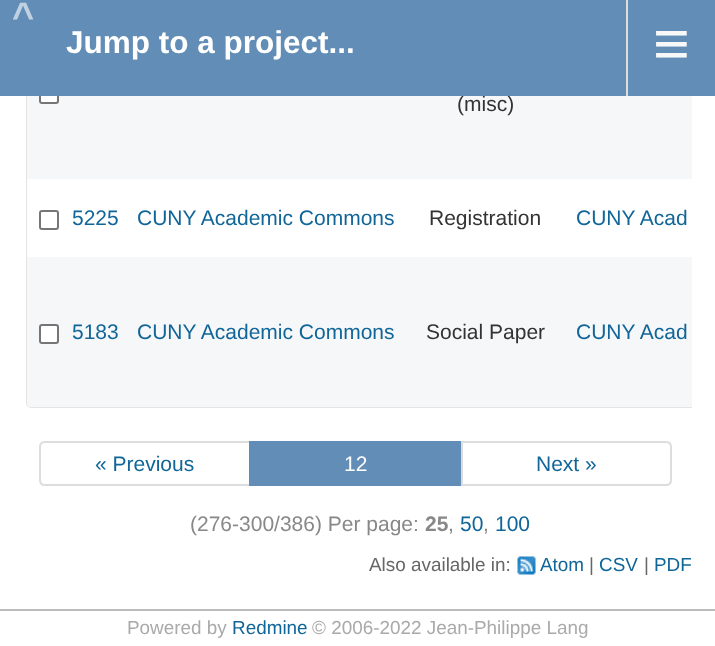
<svg xmlns="http://www.w3.org/2000/svg" width="715" height="646" viewBox="0 0 715 646">
  <defs>
    <clipPath id="clip1"><path d="M24 0h668v416H24z"/></clipPath>
  </defs>
  <rect width="100%" height="100%" fill="#fff"/>
  <g clip-path="url(#clip1)">
    <rect x="27" y="-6" width="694" height="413" rx="4" fill="none" stroke="#e4e4e4" stroke-width="2"/>
  </g>
  <path d="M27 96h665v83H27z" fill="#f6f7f8"/>
  <rect x="40" y="85" width="18" height="18" rx="2" fill="#fff" stroke="#767676" stroke-width="2"/>
  <path d="M27 179h1v78H27z" fill="#fff"/>
  <rect x="40" y="211" width="18" height="18" rx="2" fill="none" stroke="#767676" stroke-width="2"/>
  <path d="M27 257H692V407H30C28.5 407 27 405.5 27 404Z" fill="#f6f7f8"/>
  <rect x="40" y="325" width="18" height="18" rx="2" fill="#fff" stroke="#767676" stroke-width="2"/>
  <path d="M45 442H250V485H45C42 485 40 483 40 480V447C40 444 42 442 45 442Z" fill="none" stroke="#ddd" stroke-width="2"/>
  <path d="M249 441h212v45H249z" fill="#628db6"/>
  <path d="M462 442H666C669 442 671 444 671 447V480C671 483 669 485 666 485H462Z" fill="none" stroke="#ddd" stroke-width="2"/>
  <image x="517" y="556" width="19" height="19" href="img/1.png"/>
  <path d="M0 609h715v2H0z" fill="#bbb"/>
  <text x="457" y="111" font-family="Liberation Sans" font-size="21" fill="#333">(misc)</text>
  <path d="M0 0h715v96H0z" fill="#628db6"/>
  <text x="653" y="65" font-family="Liberation Sans" font-size="63" fill="#f8f8f8">≡</text>
  <path d="M626 0h2v96H626z" fill="#ddd"/>
  <text x="12" y="29" font-family="Liberation Sans" font-size="38" font-weight="bold" letter-spacing="6" fill="#c0d1e2">^</text>
  <text x="66" y="53" font-family="Liberation Sans" font-size="31.5" font-weight="bold" fill="#fff">Jump to a project...</text>
  <g font-family="Liberation Sans" font-size="21" fill="#169">
    <text x="72" y="225">5225</text>
    <text x="137" y="225">CUNY Academic Commons</text>
  </g>
  <text x="429" y="225" font-family="Liberation Sans" font-size="21" fill="#333">Registration</text>
  <g font-family="Liberation Sans" font-size="21" fill="#169">
    <text x="576" y="225">CUNY Acad</text>
    <text x="72" y="339">5183</text>
    <text x="137" y="339">CUNY Academic Commons</text>
  </g>
  <text x="426" y="339" font-family="Liberation Sans" font-size="21" fill="#333">Social Paper</text>
  <g font-family="Liberation Sans" font-size="21" fill="#169">
    <text x="576" y="339">CUNY Acad</text>
    <text x="95" y="471">« Previous</text>
  </g>
  <text x="344" y="471" font-family="Liberation Sans" font-size="21" fill="#fff">12</text>
  <text x="536" y="471" font-family="Liberation Sans" font-size="21" fill="#169">Next »</text>
  <text x="190" y="531" font-family="Liberation Sans" font-size="21" fill="#888">(276-300/386) Per page:</text>
  <text x="425" y="531" font-family="Liberation Sans" font-size="21" font-weight="bold" fill="#888">25</text>
  <text x="448" y="531" font-family="Liberation Sans" font-size="21" fill="#888">,</text>
  <text x="460" y="531" font-family="Liberation Sans" font-size="21" fill="#169">50</text>
  <text x="483" y="531" font-family="Liberation Sans" font-size="21" fill="#888">,</text>
  <text x="495" y="531" font-family="Liberation Sans" font-size="21" fill="#169">100</text>
  <text x="369" y="571" font-family="Liberation Sans" font-size="18.9" fill="#666">Also available in:</text>
  <text x="540" y="571" font-family="Liberation Sans" font-size="18.9" fill="#169">Atom</text>
  <text x="589" y="571" font-family="Liberation Sans" font-size="18.9" fill="#666">|</text>
  <text x="599" y="571" font-family="Liberation Sans" font-size="18.9" fill="#169">CSV</text>
  <text x="644" y="571" font-family="Liberation Sans" font-size="18.9" fill="#666">|</text>
  <text x="654" y="571" font-family="Liberation Sans" font-size="18.9" fill="#169">PDF</text>
  <text x="127" y="634" font-family="Liberation Sans" font-size="18.9" fill="#aaa">Powered by</text>
  <text x="232" y="634" font-family="Liberation Sans" font-size="18.9" fill="#169">Redmine</text>
  <text x="312" y="634" font-family="Liberation Sans" font-size="18.9" fill="#aaa">© 2006-2022 Jean-Philippe Lang</text>
</svg>
